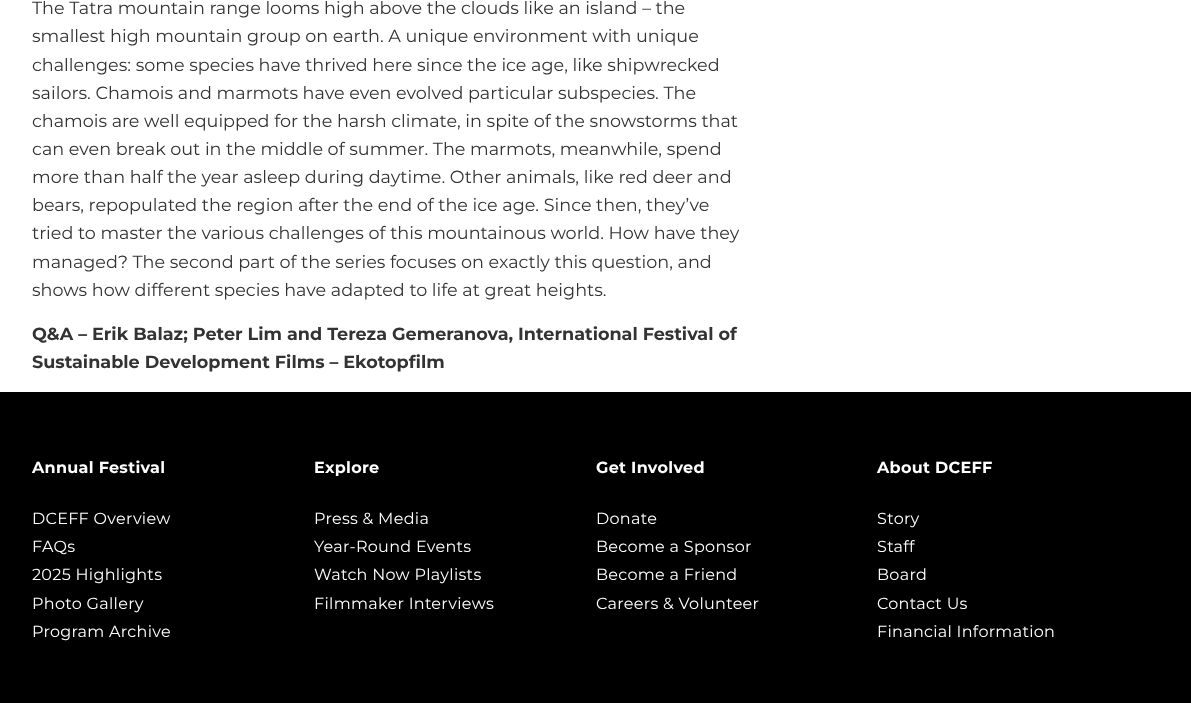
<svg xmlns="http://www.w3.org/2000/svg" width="1191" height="703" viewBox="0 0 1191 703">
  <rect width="100%" height="100%" fill="#fff"/>
  <path d="M0 392h1191v311H0z" fill="#000"/>
  <g font-family="Montserrat" font-size="17.6" fill="#333">
    <text x="32" y="14">The Tatra mountain range looms high above the clouds like an island – the</text>
    <text x="32" y="42">smallest high mountain group on earth. A unique environment with unique</text>
    <text x="32" y="71">challenges: some species have thrived here since the ice age, like shipwrecked</text>
    <text x="32" y="99">sailors. Chamois and marmots have even evolved particular subspecies. The</text>
    <text x="32" y="127">chamois are well equipped for the harsh climate, in spite of the snowstorms that</text>
    <text x="32" y="155">can even break out in the middle of summer. The marmots, meanwhile, spend</text>
    <text x="32" y="183">more than half the year asleep during daytime. Other animals, like red deer and</text>
    <text x="32" y="211">bears, repopulated the region after the end of the ice age. Since then, they’ve</text>
    <text x="32" y="239">tried to master the various challenges of this mountainous world. How have they</text>
    <text x="32" y="268">managed? The second part of the series focuses on exactly this question, and</text>
    <text x="32" y="296">shows how different species have adapted to life at great heights.</text>
  </g>
  <g font-family="Montserrat" font-size="17.6" font-weight="bold" fill="#333">
    <text x="32" y="340">Q&amp;A – Erik Balaz; Peter Lim and Tereza Gemeranova, International Festival of</text>
    <text x="32" y="368">Sustainable Development Films – Ekotopfilm</text>
  </g>
  <text x="32" y="473" font-family="Montserrat" font-size="16" font-weight="bold" letter-spacing="0.3" fill="#fff">Annual Festival</text>
  <g font-family="Montserrat" font-size="16" letter-spacing="0.3" fill="#fff">
    <text x="32" y="524">DCEFF Overview</text>
    <text x="32" y="552">FAQs</text>
    <text x="32" y="580">2025 Highlights</text>
    <text x="32" y="609">Photo Gallery</text>
    <text x="32" y="637">Program Archive</text>
  </g>
  <text x="314" y="473" font-family="Montserrat" font-size="16" font-weight="bold" letter-spacing="0.3" fill="#fff">Explore</text>
  <g font-family="Montserrat" font-size="16" letter-spacing="0.3" fill="#fff">
    <text x="314" y="524">Press &amp; Media</text>
    <text x="314" y="552">Year-Round Events</text>
    <text x="314" y="580">Watch Now Playlists</text>
    <text x="314" y="609">Filmmaker Interviews</text>
  </g>
  <text x="596" y="473" font-family="Montserrat" font-size="16" font-weight="bold" letter-spacing="0.3" fill="#fff">Get Involved</text>
  <g font-family="Montserrat" font-size="16" letter-spacing="0.3" fill="#fff">
    <text x="596" y="524">Donate</text>
    <text x="596" y="552">Become a Sponsor</text>
    <text x="596" y="580">Become a Friend</text>
    <text x="596" y="609">Careers &amp; Volunteer</text>
  </g>
  <text x="877" y="473" font-family="Montserrat" font-size="16" font-weight="bold" letter-spacing="0.3" fill="#fff">About DCEFF</text>
  <g font-family="Montserrat" font-size="16" letter-spacing="0.3" fill="#fff">
    <text x="877" y="524">Story</text>
    <text x="877" y="552">Staff</text>
    <text x="877" y="580">Board</text>
    <text x="877" y="609">Contact Us</text>
    <text x="877" y="637">Financial Information</text>
  </g>
</svg>
